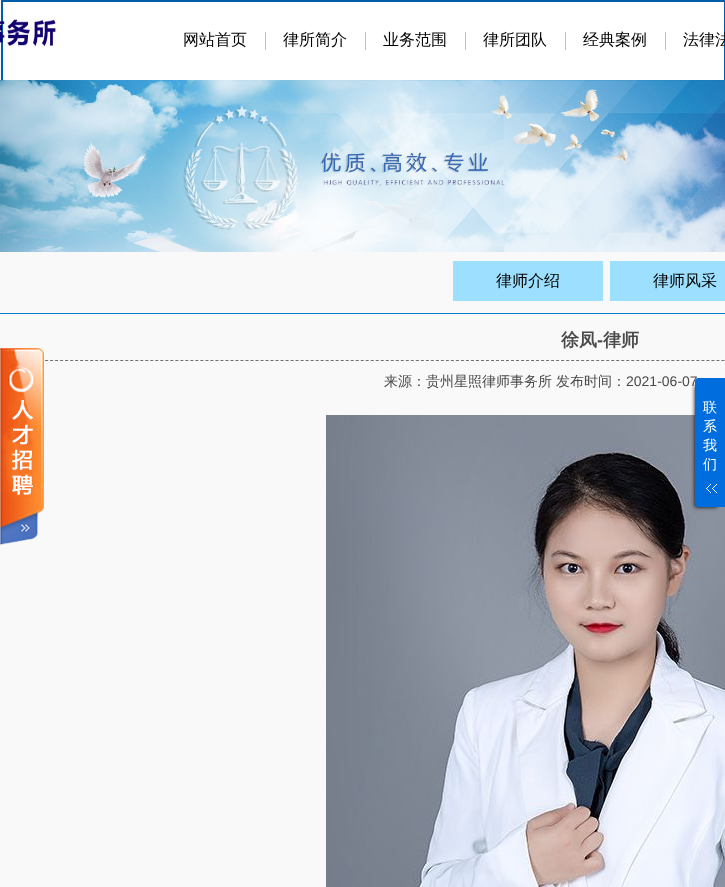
<svg xmlns="http://www.w3.org/2000/svg" width="725" height="887" viewBox="0 0 725 887">
  <rect width="100%" height="100%" fill="#f9f9f9"/>
  <path d="M3 2h721v78H3z" fill="#fff"/>
  <path d="M1 0h724v2H1z" fill="#015ca9"/>
  <path d="M724 0h1v80H724z" fill="#015ca9"/>
  <path d="M1 0h2v80H1z" fill="#015ca9"/>
  <image x="0" y="19" width="56" height="27" href="img/1.png"/>
  <path d="M265 32h1v18H265z" fill="#c2c2c2"/>
  <path d="M365 32h1v18H365z" fill="#c2c2c2"/>
  <path d="M465 32h1v18H465z" fill="#c2c2c2"/>
  <path d="M565 32h1v18H565z" fill="#c2c2c2"/>
  <path d="M665 32h1v18H665z" fill="#c2c2c2"/>
  <image x="0" y="80" width="725" height="172" href="img/2.png"/>
  <path d="M453 261h150v40H453z" fill="#9ddfff"/>
  <path d="M610 261h115v40H610z" fill="#9ddfff"/>
  <path d="M0 313h725v1H0z" fill="#0081bf"/>
  <path d="M0 360.5H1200" fill="none" stroke="#707070" stroke-dasharray="3 2.01"/>
  <image x="0" y="348" width="44" height="197" href="img/3.png"/>
  <image x="326" y="415" width="399" height="472" href="img/4.png"/>
  <path d="M695 386h22v121H695z" fill="#000" filter="blur(2px)"/>
  <g font-family="WenQuanYi Zen Hei" font-size="16" font-weight="500" fill="#000">
    <text x="183" y="45">网站首页</text>
    <text x="283" y="45">律所简介</text>
    <text x="383" y="45">业务范围</text>
    <text x="483" y="45">律所团队</text>
    <text x="583" y="45">经典案例</text>
    <text x="683" y="45">法律法</text>
    <text x="496" y="286">律师介绍</text>
    <text x="653" y="286">律师风采</text>
  </g>
  <text x="561" y="346" font-family="WenQuanYi Zen Hei" font-size="18" font-weight="bold" fill="#4a4a4a">徐凤</text>
  <text x="597" y="346" font-family="Liberation Sans" font-size="18" font-weight="bold" fill="#4a4a4a">-</text>
  <text x="603" y="346" font-family="WenQuanYi Zen Hei" font-size="18" font-weight="bold" fill="#4a4a4a">律师</text>
  <g font-family="WenQuanYi Zen Hei" font-size="14" font-weight="500" fill="#4a4a4a">
    <text x="384" y="386">来源：贵州星照律师事务所</text>
    <text x="556" y="386">发布时间：</text>
  </g>
  <text x="626" y="386" font-family="Liberation Sans" font-size="14" fill="#4a4a4a">2021-06-07</text>
  <path d="M698 378H725V507H698C696.5 507 695 505.5 695 504V381C695 379.5 696.5 378 698 378Z" fill="#006dde"/>
  <g font-family="WenQuanYi Zen Hei" font-size="14" font-weight="500" fill="#fff">
    <text x="703" y="412">联</text>
    <text x="703" y="431">系</text>
    <text x="703" y="450">我</text>
    <text x="703" y="469">们</text>
  </g>
  <image x="706" y="484" width="11" height="9" href="img/5.png"/>
</svg>
